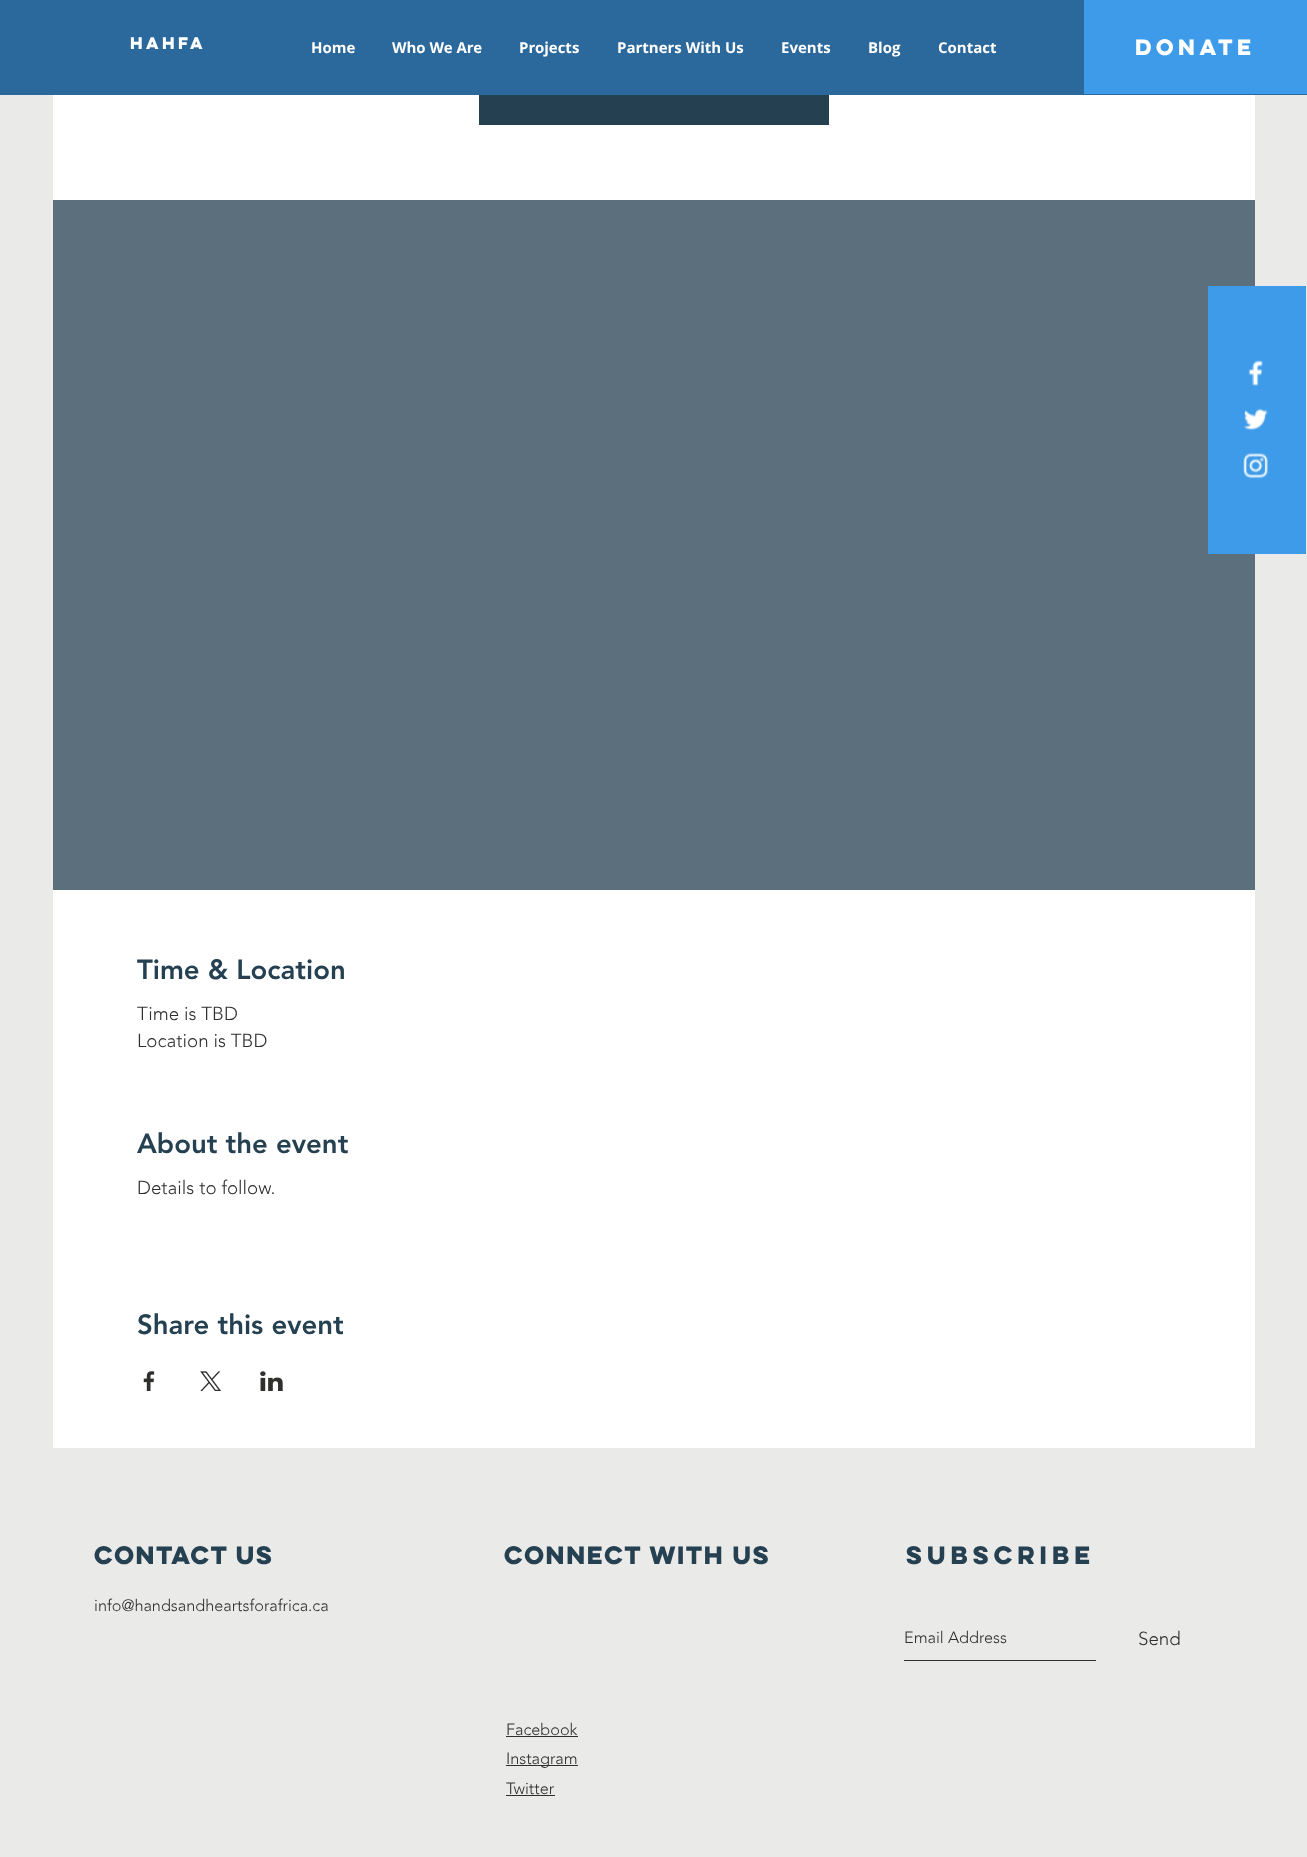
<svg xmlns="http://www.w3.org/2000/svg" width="1307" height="1857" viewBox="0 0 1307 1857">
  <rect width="100%" height="100%" fill="#eaeae8"/>
  <path d="M0 0h1307v95H0z" fill="#2b689c"/>
  <path d="M1084 0h223v94H1084z" fill="#3d9be9"/>
  <path d="M53 95h1202v1353H53z" fill="#fff"/>
  <path d="M53 200h1202v690H53z" fill="#5b707c"/>
  <path d="M1208 286h98v268H1208z" fill="#3d9be9"/>
  <image x="1248" y="360" width="15" height="26" href="img/1.png"/>
  <image x="1243" y="408" width="25" height="23" href="img/2.png"/>
  <image x="1243" y="453" width="25" height="26" href="img/3.png"/>
  <path d="M479 95h350v30H479z" fill="#254151"/>
  <image x="143" y="1371" width="12" height="20" href="img/4.png"/>
  <image x="200" y="1371" width="21" height="20" href="img/5.png"/>
  <image x="260" y="1371" width="23" height="20" href="img/6.png"/>
  <path d="M904 1660h192v1H904z" fill="#2f2f2e"/>
  <path d="M506 1736h72v1H506z" fill="#2f2f2e"/>
  <path d="M506 1765h72v1H506z" fill="#2f2f2e"/>
  <path d="M506 1795h49v1H506z" fill="#2f2f2e"/>
  <text x="130" y="49" font-family="'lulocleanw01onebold'" font-size="15" font-weight="bold" fill="#fff">HAHFA</text>
  <g font-family="Open Sans" font-size="15" font-weight="bold" fill="#fff">
    <text x="311" y="53">Home</text>
    <text x="392" y="53">Who We Are</text>
    <text x="519" y="53">Projects</text>
    <text x="617" y="53">Partners With Us</text>
    <text x="781" y="53">Events</text>
    <text x="868" y="53">Blog</text>
    <text x="938" y="53">Contact</text>
  </g>
  <text x="1135" y="55" font-family="'lulocleanw01onebold'" font-size="20" font-weight="bold" fill="#fff">DONATE</text>
  <text x="137" y="979" font-family="'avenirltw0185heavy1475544'" font-size="27.5" font-weight="900" fill="#254151">Time &amp; Location</text>
  <g font-family="'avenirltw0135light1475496'" font-size="18.75" font-weight="300" fill="#2f2f2e">
    <text x="137" y="1020">Time is TBD</text>
    <text x="137" y="1047">Location is TBD</text>
  </g>
  <text x="137" y="1153" font-family="'avenirltw0185heavy1475544'" font-size="27.5" font-weight="900" fill="#254151">About the event</text>
  <text x="137" y="1194" font-family="'avenirltw0135light1475496'" font-size="18.75" font-weight="300" fill="#2f2f2e">Details to follow.</text>
  <text x="137" y="1334" font-family="'avenirltw0185heavy1475544'" font-size="27.5" font-weight="900" fill="#254151">Share this event</text>
  <g font-family="'lulocleanw01onebold'" font-size="22.5" font-weight="bold" letter-spacing="-3.4" fill="#254151">
    <text x="94" y="1564">Contact Us</text>
    <text x="504" y="1564">Connect with us</text>
  </g>
  <text x="906" y="1564" font-family="'lulocleanw01onebold'" font-size="22.5" font-weight="bold" fill="#254151">SUBSCRIBE</text>
  <text x="904" y="1643" font-family="'avenirltw0135light1475496'" font-size="16.25" font-weight="300" fill="#2f2f2e">Email Address</text>
  <text x="1138" y="1645" font-family="'avenirltw0135light1475496'" font-size="18.75" font-weight="300" fill="#2f2f2e">Send</text>
  <g font-family="'avenirltw0135light1475496'" font-size="16.25" font-weight="300" fill="#2f2f2e">
    <text x="94" y="1611">info@handsandheartsforafrica.ca</text>
    <text x="506" y="1735">Facebook</text>
    <text x="506" y="1764">Instagram</text>
    <text x="506" y="1794">Twitter</text>
  </g>
</svg>
